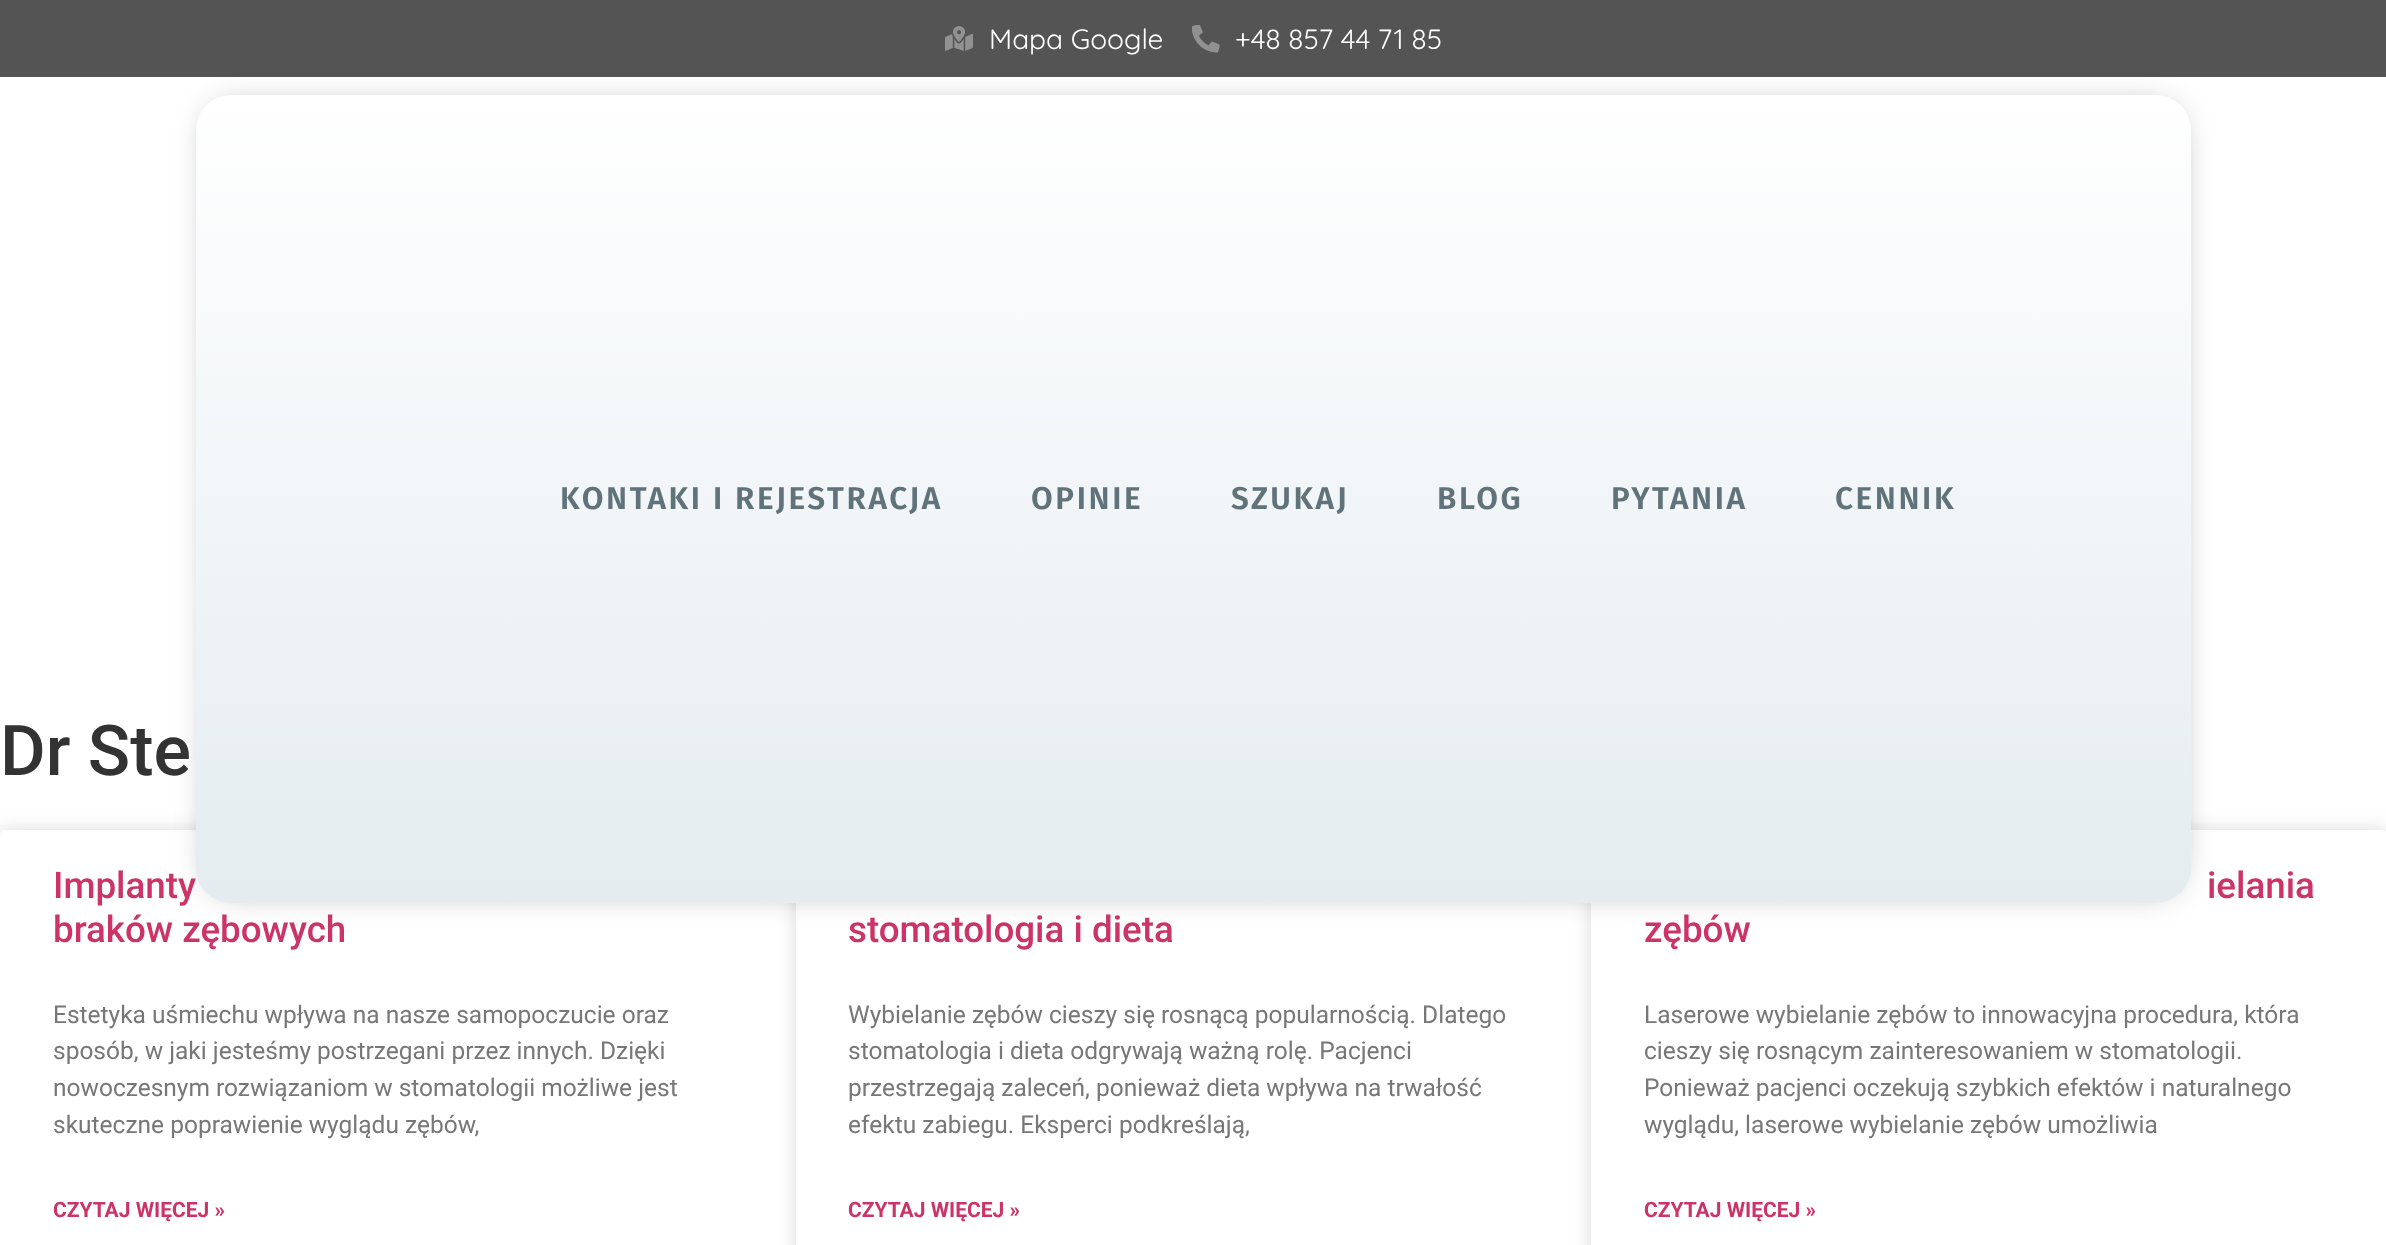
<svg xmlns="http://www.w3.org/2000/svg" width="2386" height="1245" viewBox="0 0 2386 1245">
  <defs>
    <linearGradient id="g1" gradientUnits="userSpaceOnUse" x1="1194" y1="94" x2="1194" y2="903"><stop offset="0" stop-color="#fff"/><stop offset="1" stop-color="#e4ecf0"/></linearGradient>
  </defs>
  <rect width="100%" height="100%" fill="#fff"/>
  <path d="M0 0h2386v77H0z" fill="#545454"/>
  <image x="945" y="26" width="28" height="25" href="img/1.png"/>
  <image x="1192" y="25" width="28" height="28" href="img/2.png"/>
  <rect y="830" width="796" height="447" rx="5" fill="#00000026" filter="blur(9px)"/>
  <rect y="830" width="796" height="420" rx="5" fill="#fff"/>
  <rect x="796" y="830" width="795" height="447" rx="5" fill="#00000026" filter="blur(9px)"/>
  <path d="M796 903h795v342H796z" fill="#fff"/>
  <rect x="1591" y="830" width="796" height="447" rx="5" fill="#00000026" filter="blur(9px)"/>
  <rect x="1591" y="830" width="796" height="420" rx="5" fill="#fff"/>
  <rect x="214" y="112" width="1960" height="774" rx="18" fill="#00000080" filter="blur(17.5px)"/>
  <rect x="196" y="95" width="1995" height="808" rx="35" fill="url(#g1)"/>
  <g font-family="Quicksand" font-size="28" fill="#fff">
    <text x="989" y="49">Mapa Google</text>
    <text x="1235" y="49">+48 857 44 71 85</text>
  </g>
  <g font-family="Fira Sans" font-size="31.5" font-weight="600" letter-spacing="2.6" fill="#61737a">
    <text x="560" y="509">KONTAKI I REJESTRACJA</text>
    <text x="1031" y="509">OPINIE</text>
    <text x="1231" y="509">SZUKAJ</text>
    <text x="1437" y="509">BLOG</text>
    <text x="1611" y="509">PYTANIA</text>
    <text x="1835" y="509">CENNIK</text>
  </g>
  <text x="0" y="775" font-family="Roboto" font-size="70" font-weight="500" fill="#333">Dr Ste</text>
  <g font-family="Roboto" font-size="36.75" font-weight="500" fill="#c36">
    <text x="53" y="898">Implanty</text>
    <text x="53" y="942">braków zębowych</text>
  </g>
  <g font-family="Roboto" font-size="24.5" fill="#777">
    <text x="53" y="1023">Estetyka uśmiechu wpływa na nasze samopoczucie oraz</text>
    <text x="53" y="1059">sposób, w jaki jesteśmy postrzegani przez innych. Dzięki</text>
    <text x="53" y="1096">nowoczesnym rozwiązaniom w stomatologii możliwe jest</text>
    <text x="53" y="1133">skuteczne poprawienie wyglądu zębów,</text>
  </g>
  <text x="53" y="1217" font-family="Roboto" font-size="21" font-weight="bold" fill="#c36">CZYTAJ WIĘCEJ »</text>
  <text x="848" y="942" font-family="Roboto" font-size="36.75" font-weight="500" fill="#c36">stomatologia i dieta</text>
  <g font-family="Roboto" font-size="24.5" fill="#777">
    <text x="848" y="1023">Wybielanie zębów cieszy się rosnącą popularnością. Dlatego</text>
    <text x="848" y="1059">stomatologia i dieta odgrywają ważną rolę. Pacjenci</text>
    <text x="848" y="1096">przestrzegają zaleceń, ponieważ dieta wpływa na trwałość</text>
    <text x="848" y="1133">efektu zabiegu. Eksperci podkreślają,</text>
  </g>
  <text x="848" y="1217" font-family="Roboto" font-size="21" font-weight="bold" fill="#c36">CZYTAJ WIĘCEJ »</text>
  <g font-family="Roboto" font-size="36.75" font-weight="500" fill="#c36">
    <text x="2207" y="898">ielania</text>
    <text x="1644" y="942">zębów</text>
  </g>
  <g font-family="Roboto" font-size="24.5" fill="#777">
    <text x="1644" y="1023">Laserowe wybielanie zębów to innowacyjna procedura, która</text>
    <text x="1644" y="1059">cieszy się rosnącym zainteresowaniem w stomatologii.</text>
    <text x="1644" y="1096">Ponieważ pacjenci oczekują szybkich efektów i naturalnego</text>
    <text x="1644" y="1133">wyglądu, laserowe wybielanie zębów umożliwia</text>
  </g>
  <text x="1644" y="1217" font-family="Roboto" font-size="21" font-weight="bold" fill="#c36">CZYTAJ WIĘCEJ »</text>
</svg>
